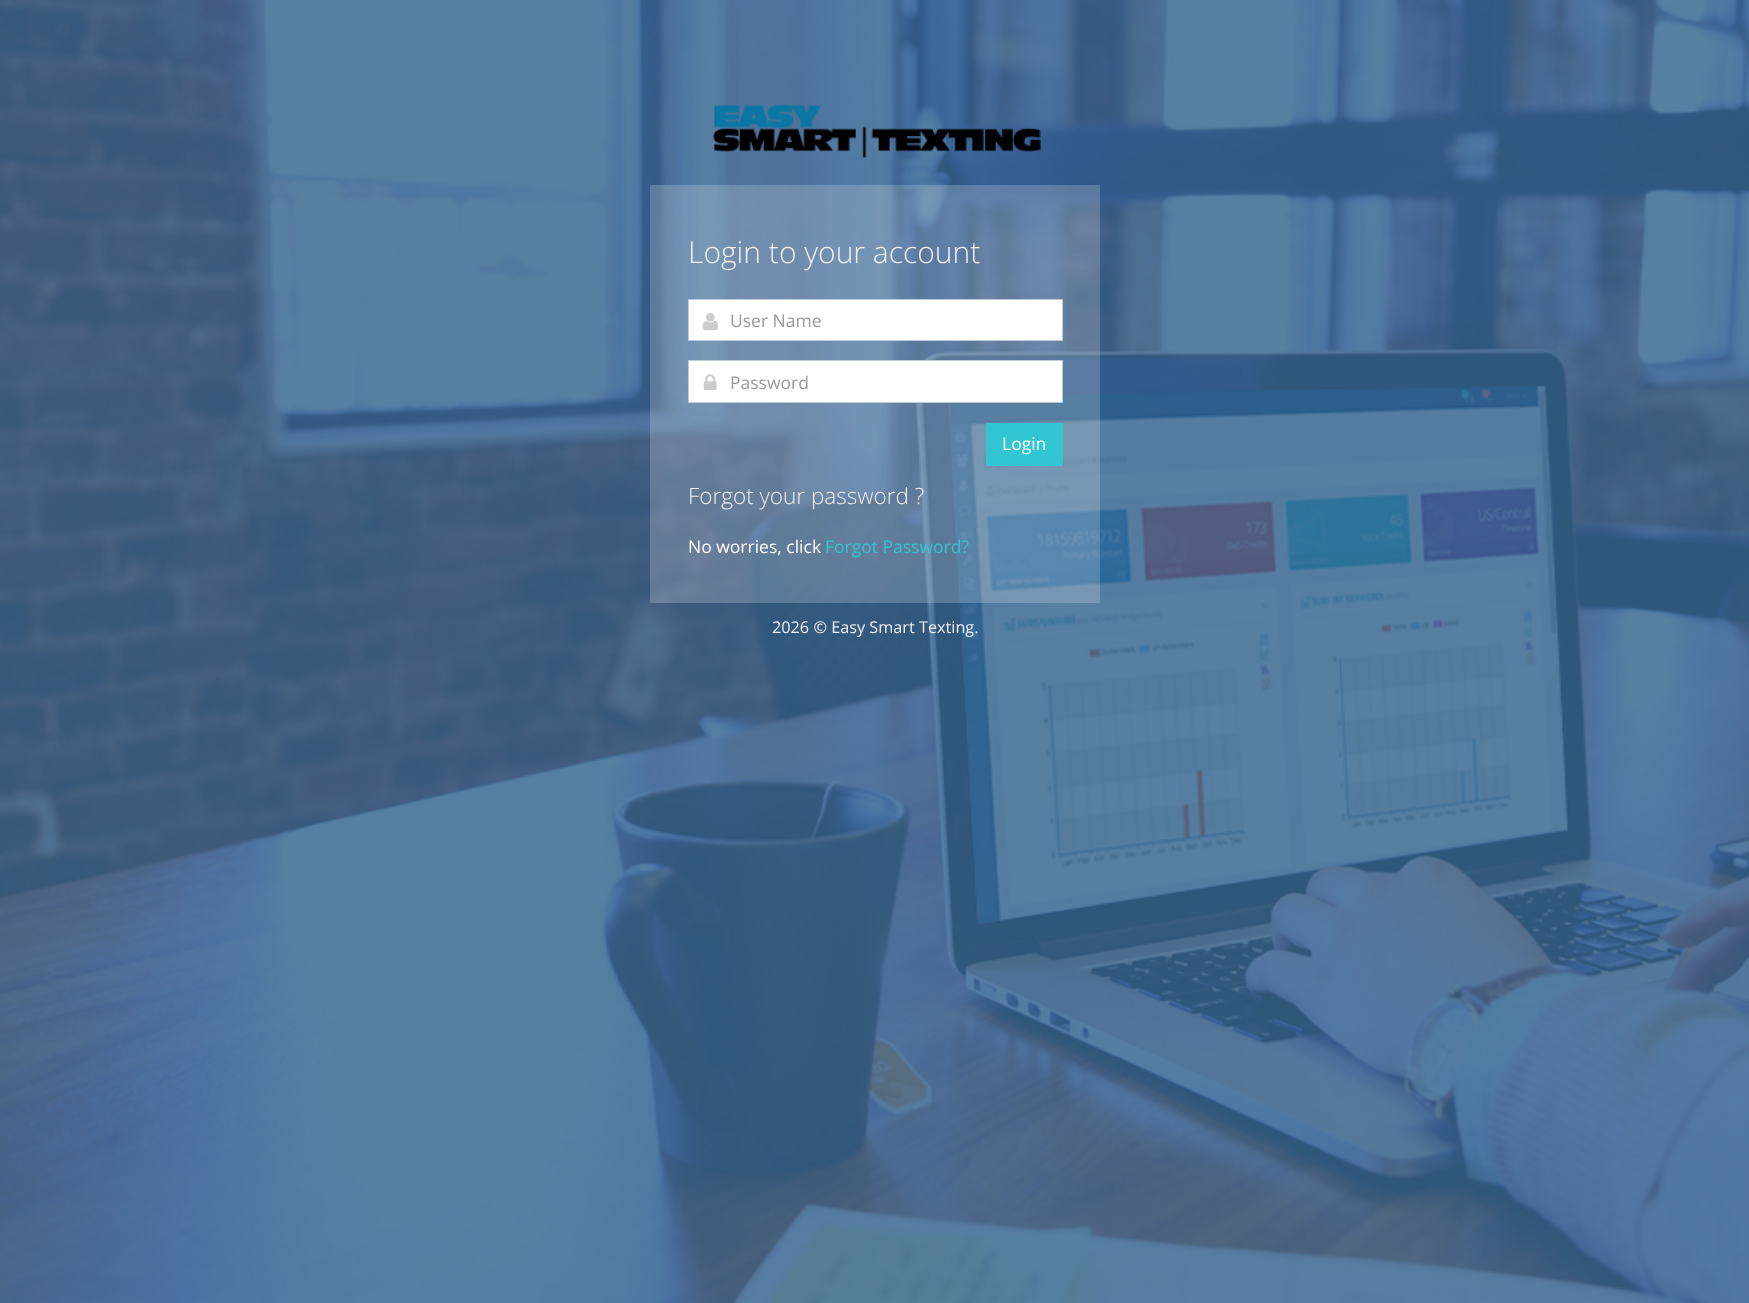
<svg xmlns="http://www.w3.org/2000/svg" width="1749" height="1303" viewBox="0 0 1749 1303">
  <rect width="100%" height="100%" fill="#fff"/>
  <image x="0" y="0" width="1749" height="1303" href="img/1.png"/>
  <image x="713" y="104" width="328" height="54" href="img/2.png"/>
  <path d="M650 185h450v418H650z" fill="#ffffff33"/>
  <path d="M688.5 299.5h374v41H688.5z" fill="#fff" stroke="#c2cad8"/>
  <image x="702" y="313" width="17" height="18" href="img/3.png"/>
  <path d="M688.5 360.5h374v42H688.5z" fill="#fff" stroke="#c2cad8"/>
  <image x="703" y="374" width="14" height="16" href="img/4.png"/>
  <path d="M986 423h77v43H986z" fill="#32c5d2"/>
  <text x="688" y="263" font-family="Open Sans" font-size="30" font-weight="300" fill="#eee">Login to your account</text>
  <g font-family="Open Sans" font-size="17.5" fill="#999">
    <text x="730" y="327">User Name</text>
    <text x="730" y="389">Password</text>
  </g>
  <text x="1002" y="450" font-family="Open Sans" font-size="17.5" fill="#fff">Login</text>
  <text x="688" y="504" font-family="Open Sans" font-size="22.5" font-weight="300" fill="#eee">Forgot your password ?</text>
  <text x="688" y="553" font-family="Open Sans" font-size="17.5" fill="#fff">No worries, click</text>
  <text x="825" y="553" font-family="Open Sans" font-size="17.5" fill="#32c5d2">Forgot Password?</text>
  <text x="772" y="633" font-family="Open Sans" font-size="16.25" fill="#eee">2026 © Easy Smart Texting.</text>
</svg>
